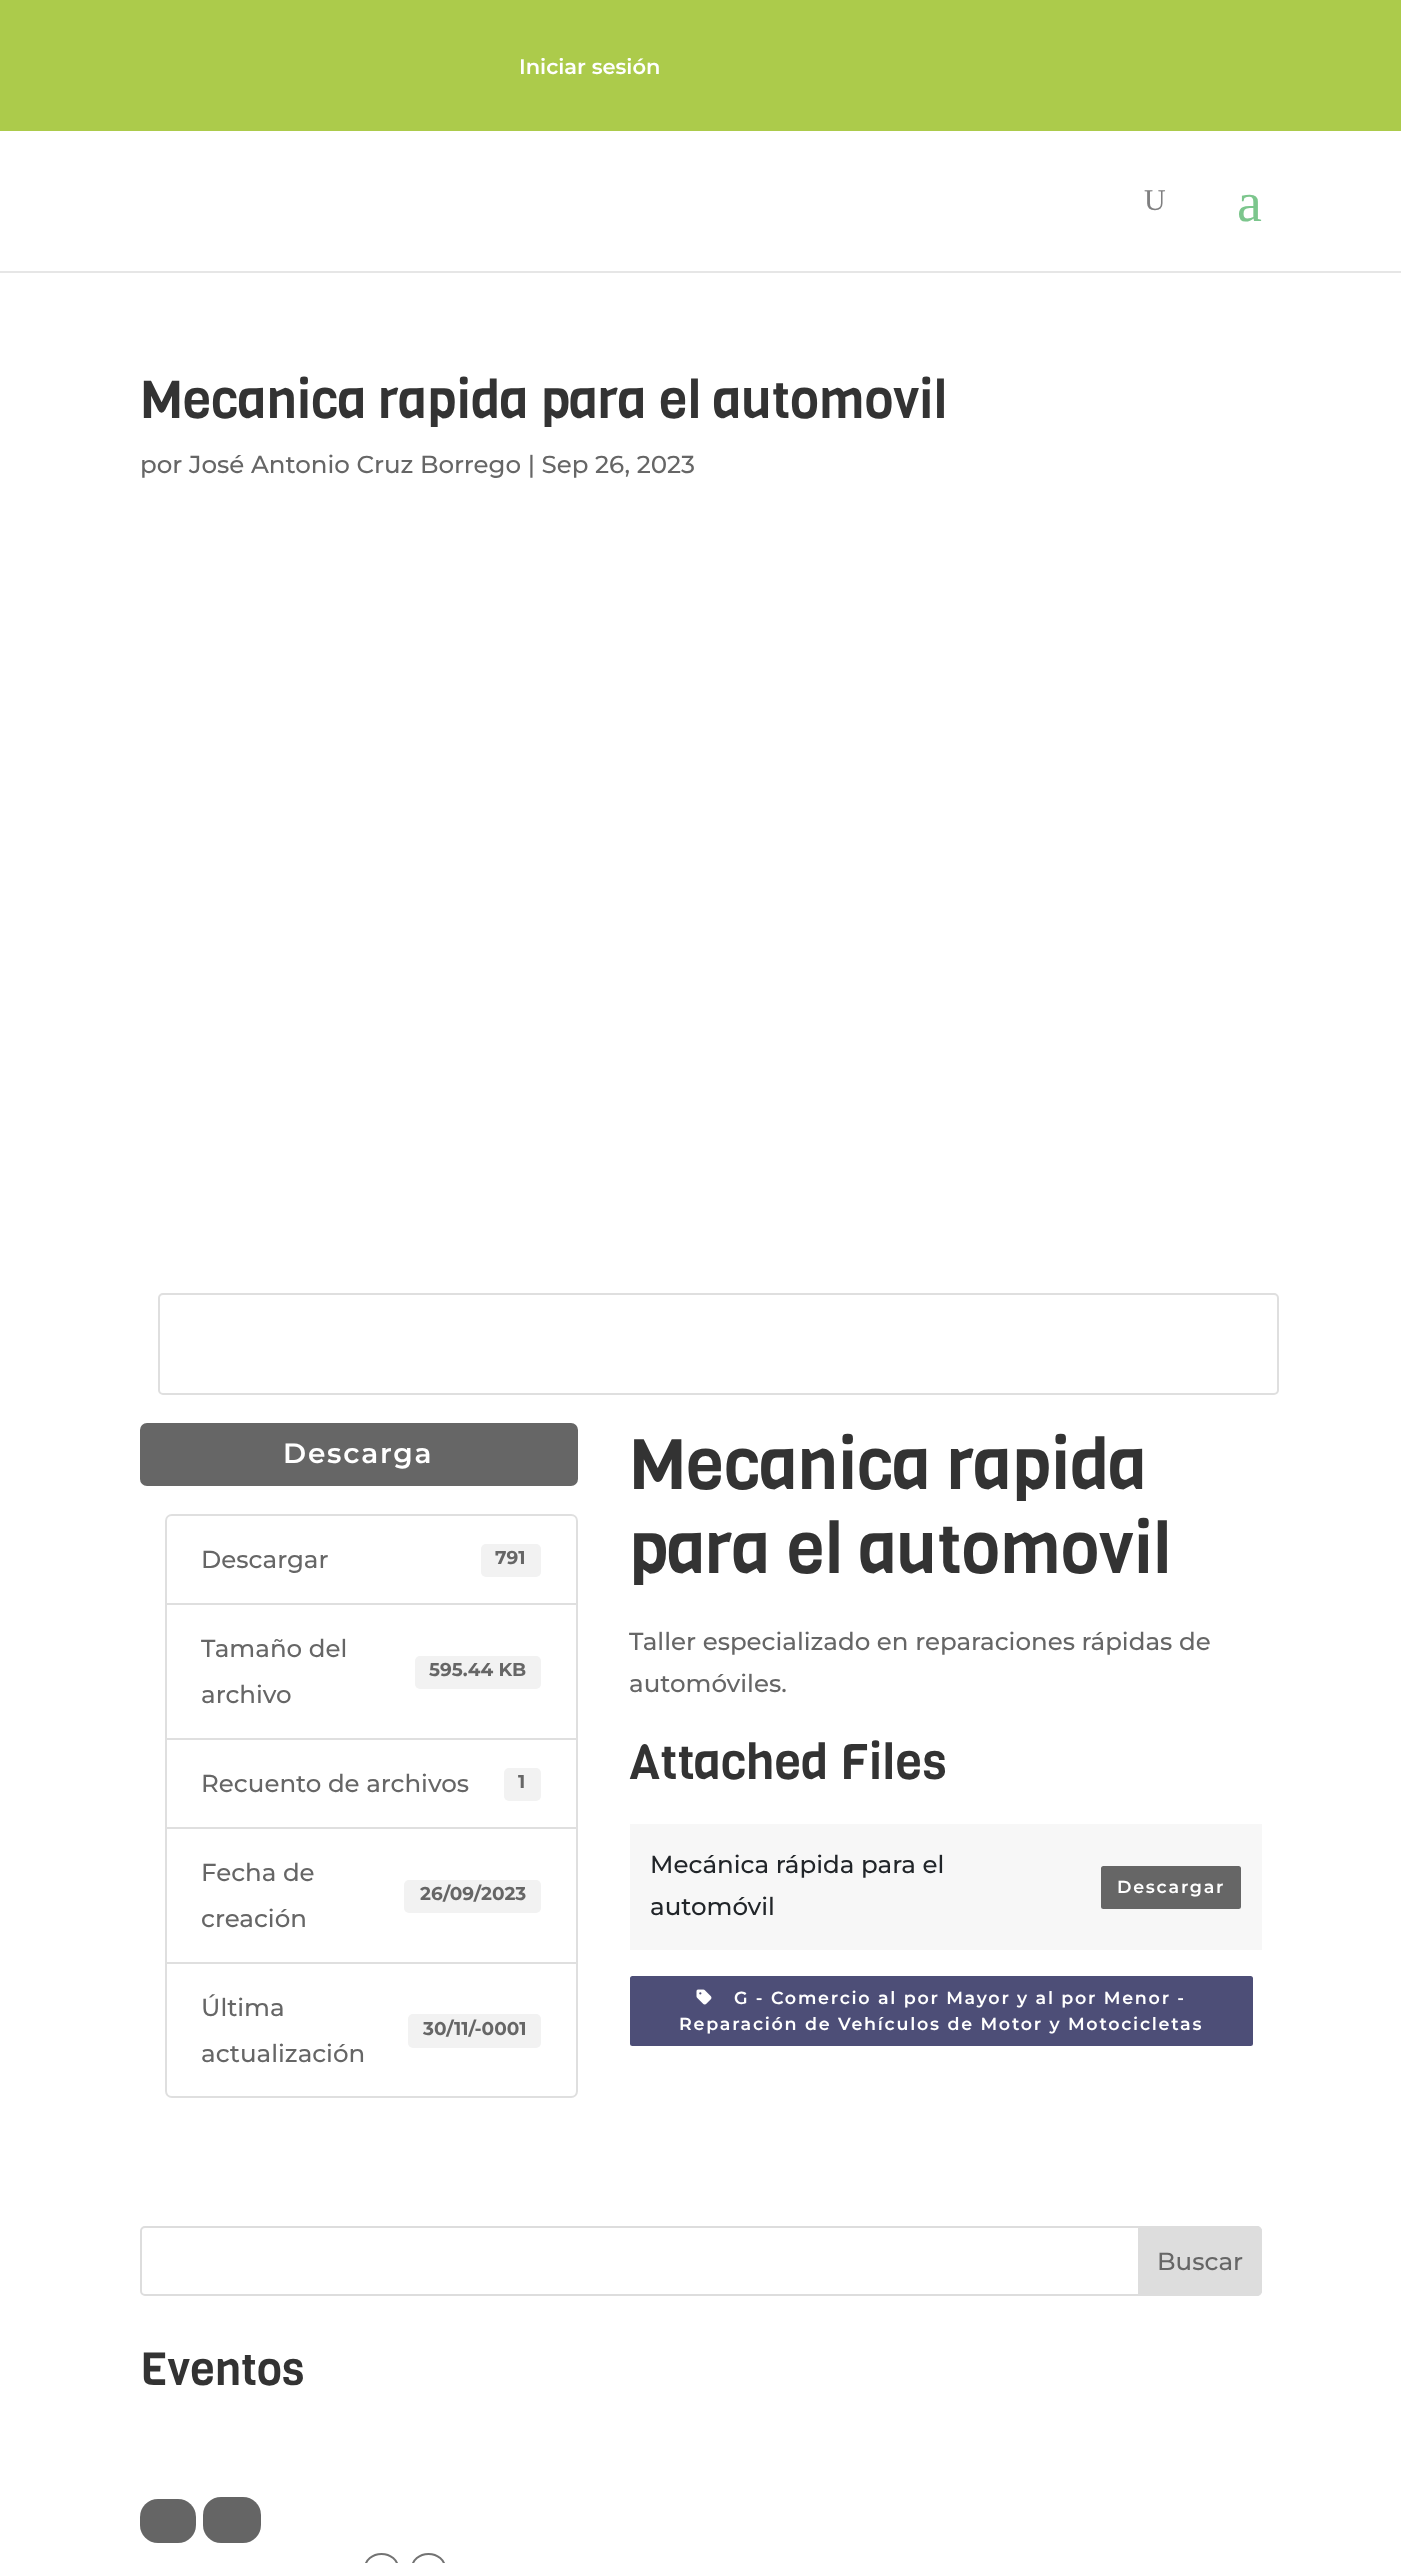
<svg xmlns="http://www.w3.org/2000/svg" width="1401" height="2563" viewBox="0 0 1401 2563">
  <defs>
    <clipPath id="clip1"><path d="M518 58h142v37H518z"/></clipPath>
  </defs>
  <rect width="100%" height="100%" fill="#fff"/>
  <path d="M0 0h1401v131H0z" fill="#accb4b"/>
  <path d="M0 271V273H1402V133V271Z" fill="#e6e6e6"/>
  <rect x="159" y="1294" width="1119" height="100" rx="4" fill="none" stroke="#dfdfdf" stroke-width="2"/>
  <rect x="141" y="1424" width="436" height="61" rx="6" fill="#666" stroke="#666" stroke-width="2"/>
  <path d="M172 1515H571C574.5 1515 577 1517.5 577 1521V1604H166V1521C166 1517.5 168.5 1515 172 1515Z" fill="none" stroke="#dfdfdf" stroke-width="2"/>
  <rect x="481" y="1544" width="60" height="33" rx="5" fill="#f2f2f2"/>
  <path d="M166 1604h411v135H166z" fill="none" stroke="#dfdfdf" stroke-width="2"/>
  <rect x="415" y="1656" width="126" height="33" rx="5" fill="#f2f2f2"/>
  <path d="M166 1739h411v89H166z" fill="none" stroke="#dfdfdf" stroke-width="2"/>
  <rect x="504" y="1768" width="37" height="33" rx="5" fill="#f2f2f2"/>
  <path d="M166 1828h411v135H166z" fill="none" stroke="#dfdfdf" stroke-width="2"/>
  <rect x="404" y="1880" width="137" height="33" rx="5" fill="#f2f2f2"/>
  <path d="M166 1963H577V2091C577 2094.5 574.5 2097 571 2097H172C168.5 2097 166 2094.5 166 2091Z" fill="#fff" stroke="#dfdfdf" stroke-width="2"/>
  <rect x="408" y="2014" width="133" height="34" rx="5" fill="#f2f2f2"/>
  <path d="M630 1824h632v126H630z" fill="#f7f7f7"/>
  <rect x="1102" y="1867" width="138" height="41" rx="1.5" fill="#666" stroke="#666" stroke-width="2"/>
  <rect x="631" y="1977" width="621" height="68" rx="1.5" fill="#4d4e77" stroke="#4d4e77" stroke-width="2"/>
  <image x="696" y="1989" width="16" height="16" href="img/1.png"/>
  <rect x="141" y="2227" width="1120" height="68" rx="4" fill="none" stroke="#ddd" stroke-width="2"/>
  <path d="M1139 2227H1257C1259 2227 1261 2229 1261 2231V2291C1261 2293 1259 2295 1257 2295H1139Z" fill="#ddd" stroke="#ddd" stroke-width="2"/>
  <rect x="140" y="2499" width="56" height="44" rx="18" fill="#656565"/>
  <rect x="203" y="2497" width="58" height="46" rx="18" fill="#656565"/>
  <rect x="365" y="2554" width="33" height="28" rx="16.5" fill="none" stroke="#737373" stroke-width="2"/>
  <rect x="412" y="2554" width="33" height="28" rx="16.5" fill="none" stroke="#737373" stroke-width="2"/>
  <g clip-path="url(#clip1)">
    <text x="519" y="74" font-family="Montserrat" font-size="21" font-weight="600" fill="#fff">Iniciar sesión</text>
  </g>
  <text x="1144" y="210" font-family="Liberation Serif" font-size="30" fill="#7f7f80">U</text>
  <text x="1237" y="221" font-family="Liberation Serif" font-size="56" fill="#7cc68d">a</text>
  <text x="140" y="418" font-family="Viga" font-size="52.5" fill="#333">Mecanica rapida para el automovil</text>
  <text x="140" y="473" font-family="Montserrat" font-size="24.5" font-weight="500" fill="#666">por José Antonio Cruz Borrego | Sep 26, 2023</text>
  <text x="283" y="1463" font-family="Montserrat" font-size="28" font-weight="600" letter-spacing="1.75" fill="#fff">Descarga</text>
  <text x="201" y="1568" font-family="Montserrat" font-size="24.5" font-weight="500" fill="#666">Descargar</text>
  <text x="495" y="1564" font-family="Montserrat" font-size="18.5" font-weight="bold" fill="#666">791</text>
  <text x="201" y="1657" font-family="Montserrat" font-size="24.5" font-weight="500" fill="#666">Tamaño del</text>
  <text x="429" y="1676" font-family="Montserrat" font-size="18.5" font-weight="bold" fill="#666">595.44 KB</text>
  <g font-family="Montserrat" font-size="24.5" font-weight="500" fill="#666">
    <text x="201" y="1703">archivo</text>
    <text x="201" y="1792">Recuento de archivos</text>
  </g>
  <text x="518" y="1788" font-family="Montserrat" font-size="18.5" font-weight="bold" fill="#666">1</text>
  <text x="201" y="1881" font-family="Montserrat" font-size="24.5" font-weight="500" fill="#666">Fecha de</text>
  <text x="420" y="1900" font-family="Montserrat" font-size="18.5" font-weight="bold" fill="#666">26/09/2023</text>
  <g font-family="Montserrat" font-size="24.5" font-weight="500" fill="#666">
    <text x="201" y="1927">creación</text>
    <text x="201" y="2016">Última</text>
  </g>
  <text x="423" y="2035" font-family="Montserrat" font-size="18.5" font-weight="bold" fill="#666">30/11/-0001</text>
  <text x="201" y="2062" font-family="Montserrat" font-size="24.5" font-weight="500" fill="#666">actualización</text>
  <g font-family="Viga" font-size="70" fill="#333">
    <text x="629" y="1489">Mecanica rapida</text>
    <text x="629" y="1573">para el automovil</text>
  </g>
  <g font-family="Montserrat" font-size="24.5" font-weight="500" fill="#666">
    <text x="629" y="1650">Taller especializado en reparaciones rápidas de</text>
    <text x="629" y="1692">automóviles.</text>
  </g>
  <text x="629" y="1779" font-family="Viga" font-size="49" fill="#333">Attached Files</text>
  <g font-family="Montserrat" font-size="24.5" font-weight="500" fill="#212529">
    <text x="650" y="1873">Mecánica rápida para el</text>
    <text x="650" y="1915">automóvil</text>
  </g>
  <g font-family="Montserrat" font-size="17.5" font-weight="600" letter-spacing="1.75" fill="#fff">
    <text x="1117" y="1893">Descargar</text>
    <text x="734" y="2004">G - Comercio al por Mayor y al por Menor -</text>
    <text x="679" y="2030">Reparación de Vehículos de Motor y Motocicletas</text>
  </g>
  <text x="1157" y="2270" font-family="Montserrat" font-size="24.5" font-weight="500" fill="#666">Buscar</text>
  <text x="140" y="2385" font-family="Viga" font-size="45.5" fill="#333">Eventos</text>
</svg>
